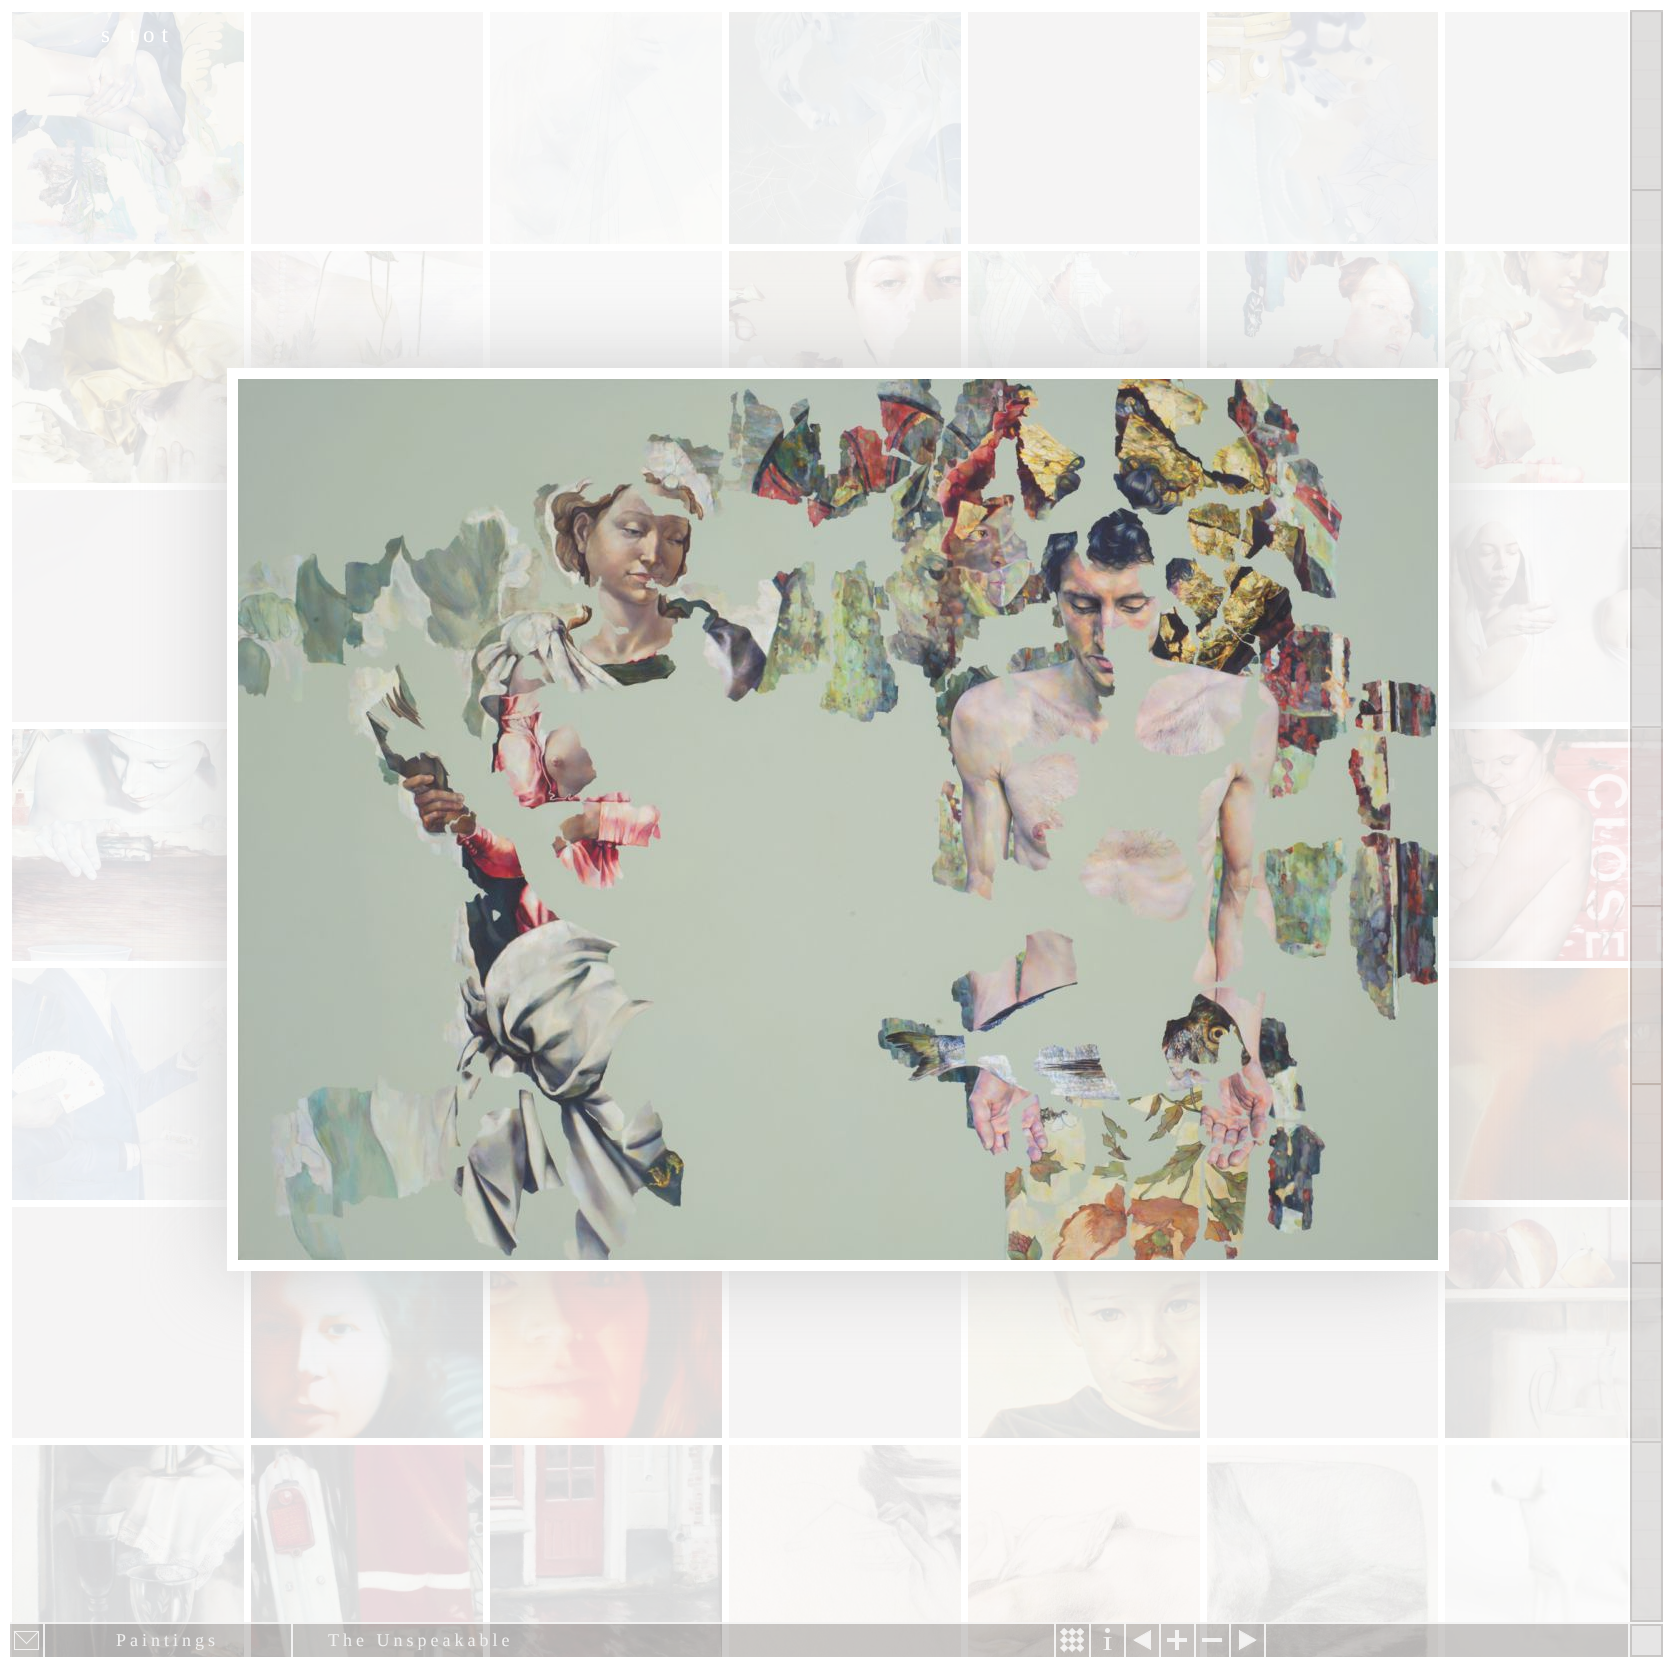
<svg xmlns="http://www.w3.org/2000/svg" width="1673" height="1667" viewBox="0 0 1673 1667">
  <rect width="100%" height="100%" fill="#fff"/>
  <image x="12" y="12" width="1651" height="1645" href="img/27.png"/>
  <image x="12" y="12" width="232" height="232" href="img/1.png"/>
  <path d="M1438 244h225v7H1438z" fill="#fff"/>
  <path d="M1438 244h7v124H1438z" fill="#fff"/>
  <path d="M1200 244h245v7H1200z" fill="#fff"/>
  <path d="M1200 244h7v124H1200z" fill="#fff"/>
  <path d="M961 244h246v7H961z" fill="#fff"/>
  <path d="M961 244h7v124H961z" fill="#fff"/>
  <path d="M722 244h246v7H722z" fill="#fff"/>
  <path d="M722 244h7v124H722z" fill="#fff"/>
  <path d="M483 244h246v7H483z" fill="#fff"/>
  <path d="M483 244h7v124H483z" fill="#fff"/>
  <path d="M244 244h246v7H244z" fill="#fff"/>
  <path d="M244 244h7v124H244z" fill="#fff"/>
  <path d="M5 244h246v7H5z" fill="#fff"/>
  <path d="M244 5h7v246H244z" fill="#fff"/>
  <path d="M251 12h232v232H251z" fill="#f5f4f4b3"/>
  <path d="M483 5h7v246H483z" fill="#fff"/>
  <image x="490" y="12" width="232" height="232" href="img/2.png"/>
  <path d="M722 5h7v246H722z" fill="#fff"/>
  <image x="729" y="12" width="232" height="232" href="img/3.png"/>
  <path d="M961 5h7v246H961z" fill="#fff"/>
  <path d="M968 12h232v232H968z" fill="#f5f4f4"/>
  <path d="M1200 5h7v246H1200z" fill="#fff"/>
  <image x="1207" y="12" width="231" height="232" href="img/4.png"/>
  <path d="M1438 5h7v246H1438z" fill="#fff"/>
  <path d="M1445 12h218v232H1445z" fill="#f5f5f5"/>
  <image x="12" y="251" width="232" height="232" href="img/5.png"/>
  <image x="251" y="251" width="232" height="117" href="img/6.png"/>
  <path d="M490 251h232v117H490z" fill="#f8f8f8"/>
  <image x="729" y="251" width="232" height="117" href="img/7.png"/>
  <image x="968" y="251" width="232" height="117" href="img/8.png"/>
  <image x="1207" y="251" width="231" height="117" href="img/9.png"/>
  <image x="1445" y="251" width="218" height="232" href="img/10.png"/>
  <path d="M5 483h222v7H5z" fill="#fff"/>
  <path d="M12 490h215v232H12z" fill="#f3f2f2b3"/>
  <path d="M1449 483h214v7H1449z" fill="#fff"/>
  <image x="1449" y="490" width="214" height="232" href="img/11.png"/>
  <path d="M5 722h222v7H5z" fill="#fff"/>
  <image x="12" y="729" width="215" height="232" href="img/12.png"/>
  <path d="M1449 722h214v7H1449z" fill="#fff"/>
  <image x="1449" y="729" width="214" height="232" href="img/13.png"/>
  <path d="M5 961h222v7H5z" fill="#fff"/>
  <image x="12" y="968" width="215" height="232" href="img/14.png"/>
  <path d="M1449 961h214v7H1449z" fill="#fff"/>
  <image x="1449" y="968" width="214" height="232" href="img/15.png"/>
  <path d="M5 1200h222v7H5z" fill="#fff"/>
  <path d="M12 1207h232v231H12z" fill="#f5f4f4"/>
  <path d="M1438 1438h225v7H1438z" fill="#fff"/>
  <path d="M1438 1438h7v219H1438z" fill="#fff"/>
  <path d="M1200 1438h245v7H1200z" fill="#fff"/>
  <path d="M1200 1438h7v219H1200z" fill="#fff"/>
  <path d="M961 1438h246v7H961z" fill="#fff"/>
  <path d="M961 1438h7v219H961z" fill="#fff"/>
  <path d="M722 1438h246v7H722z" fill="#fff"/>
  <path d="M722 1438h7v219H722z" fill="#fff"/>
  <path d="M483 1438h246v7H483z" fill="#fff"/>
  <path d="M483 1438h7v219H483z" fill="#fff"/>
  <path d="M244 1438h246v7H244z" fill="#fff"/>
  <path d="M244 1438h7v219H244z" fill="#fff"/>
  <path d="M5 1438h246v7H5z" fill="#fff"/>
  <path d="M244 1271h7v174H244z" fill="#fff"/>
  <image x="251" y="1271" width="232" height="167" href="img/16.png"/>
  <path d="M483 1271h7v174H483z" fill="#fff"/>
  <image x="490" y="1271" width="232" height="167" href="img/17.png"/>
  <path d="M722 1271h7v174H722z" fill="#fff"/>
  <path d="M729 1271h232v167H729z" fill="#f5f4f4"/>
  <path d="M961 1271h7v174H961z" fill="#fff"/>
  <image x="968" y="1271" width="232" height="167" href="img/18.png"/>
  <path d="M1200 1271h7v174H1200z" fill="#fff"/>
  <path d="M1207 1271h231v167H1207z" fill="#f5f4f4"/>
  <path d="M1449 1200h214v7H1449z" fill="#fff"/>
  <path d="M1438 1271h7v174H1438z" fill="#fff"/>
  <image x="1445" y="1207" width="218" height="231" href="img/19.png"/>
  <image x="12" y="1445" width="232" height="212" href="img/20.png"/>
  <image x="251" y="1445" width="232" height="212" href="img/21.png"/>
  <image x="490" y="1445" width="232" height="212" href="img/22.png"/>
  <image x="729" y="1445" width="232" height="212" href="img/23.png"/>
  <image x="968" y="1445" width="232" height="212" href="img/24.png"/>
  <image x="1207" y="1445" width="231" height="212" href="img/25.png"/>
  <image x="1445" y="1445" width="218" height="212" href="img/26.png"/>
  <path d="M227 368h1220v901H227z" fill="#ccc" filter="blur(40px)"/>
  <path d="M227 368h1222v903H227z" fill="#fff"/>
  <image x="238" y="379" width="1200" height="881" href="img/28.png"/>
  <path d="M1628 10h2v1612H1628z" fill="#ffffffcc"/>
  <image x="1630" y="10" width="33" height="1612" href="img/29.png"/>
  <image x="1632" y="12" width="29" height="177" href="img/30.png"/>
  <image x="1632" y="191" width="29" height="177" href="img/31.png"/>
  <image x="1632" y="370" width="29" height="177" href="img/32.png"/>
  <image x="1632" y="549" width="29" height="177" href="img/33.png"/>
  <image x="1632" y="728" width="29" height="177" href="img/34.png"/>
  <image x="1632" y="907" width="29" height="176" href="img/35.png"/>
  <image x="1632" y="1085" width="29" height="177" href="img/36.png"/>
  <image x="1632" y="1264" width="29" height="177" href="img/37.png"/>
  <image x="1632" y="1443" width="29" height="177" href="img/38.png"/>
  <image x="10" y="1622" width="1653" height="35" href="img/39.png"/>
  <path d="M10 1622h1653v2H10z" fill="#ffffffcc"/>
  <path d="M43 1624h2v35H43z" fill="#ffffffcc"/>
  <image x="13" y="1630" width="26" height="20" href="img/40.png"/>
  <path d="M291 1624h2v35H291z" fill="#ffffffcc"/>
  <path d="M1054 1624h2v35H1054z" fill="#ffffffcc"/>
  <image x="1060" y="1627" width="24" height="26" href="img/41.png"/>
  <path d="M1089 1624h2v35H1089z" fill="#ffffffcc"/>
  <image x="1103" y="1628" width="9" height="22" href="img/42.png"/>
  <path d="M1124 1624h2v35H1124z" fill="#ffffffcc"/>
  <image x="1133" y="1630" width="19" height="20" href="img/43.png"/>
  <path d="M1159 1624h2v35H1159z" fill="#ffffffcc"/>
  <image x="1167" y="1630" width="20" height="20" href="img/44.png"/>
  <path d="M1194 1624h2v35H1194z" fill="#ffffffcc"/>
  <path d="M1202 1638h20v4H1202z" fill="#ffffffcc"/>
  <path d="M1229 1624h2v35H1229z" fill="#ffffffcc"/>
  <image x="1238" y="1630" width="19" height="20" href="img/45.png"/>
  <path d="M1264 1624h2v35H1264z" fill="#ffffffcc"/>
  <path d="M1628 1624h2v35H1628z" fill="#ffffffcc"/>
  <path d="M1632 1626h29v29H1632z" fill="#e6e5e5"/>
  <text x="101" y="42" font-family="Liberation Serif" font-size="23" letter-spacing="7" fill="#fff">s tot</text>
  <g font-family="Liberation Serif" font-size="18" letter-spacing="4" fill="#f1f1f1">
    <text x="116" y="1646">Paintings</text>
    <text x="328" y="1646">The Unspeakable</text>
  </g>
</svg>
